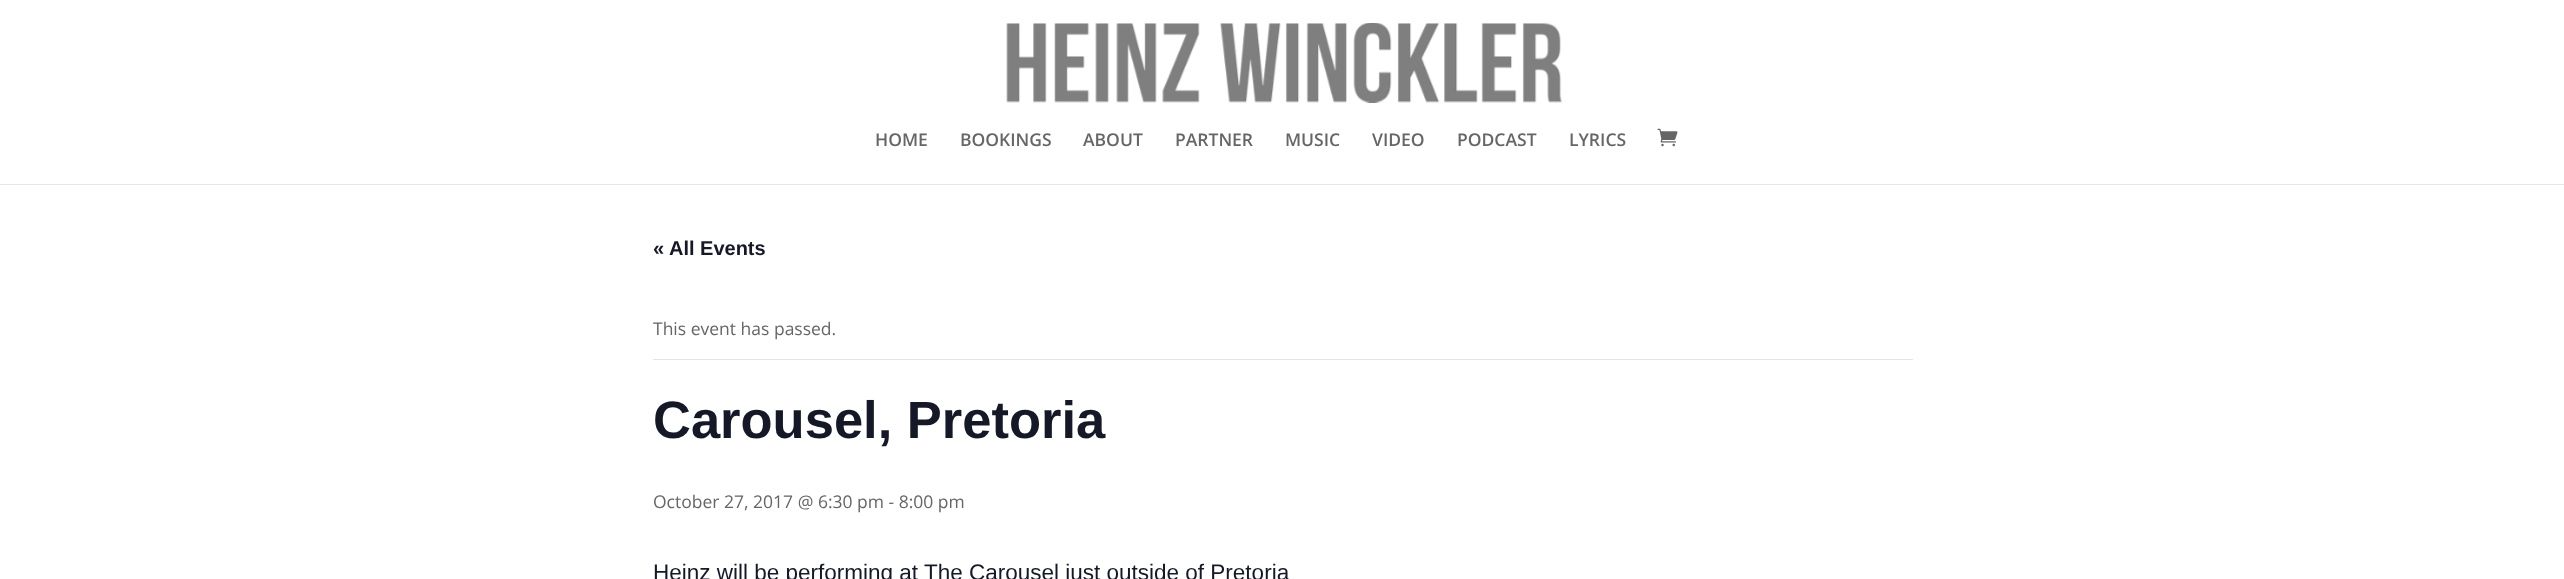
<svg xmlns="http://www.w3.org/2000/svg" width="2564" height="579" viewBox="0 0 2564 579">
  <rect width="100%" height="100%" fill="#fff"/>
  <path d="M0 184h2564v1H0z" fill="#e6e6e6"/>
  <image x="1006" y="23" width="557" height="80" href="img/1.png"/>
  <image x="1657" y="128" width="21" height="19" href="img/2.png"/>
  <path d="M653 359h1260v1H653z" fill="#e4e4e4"/>
  <g font-family="Open Sans" font-size="17.5" font-weight="600" fill="#666">
    <text x="875" y="146">HOME</text>
    <text x="960" y="146">BOOKINGS</text>
    <text x="1083" y="146">ABOUT</text>
    <text x="1175" y="146">PARTNER</text>
    <text x="1285" y="146">MUSIC</text>
    <text x="1372" y="146">VIDEO</text>
    <text x="1457" y="146">PODCAST</text>
    <text x="1569" y="146">LYRICS</text>
  </g>
  <text x="653" y="255" font-family="Liberation Sans" font-size="20" font-weight="bold" fill="#141827">« All Events</text>
  <text x="653" y="335" font-family="Open Sans" font-size="17.5" fill="#666">This event has passed.</text>
  <text x="653" y="438" font-family="Liberation Sans" font-size="52.5" font-weight="bold" fill="#141827">Carousel, Pretoria</text>
  <text x="653" y="508" font-family="Open Sans" font-size="17.5" fill="#666">October 27, 2017 @ 6:30 pm - 8:00 pm</text>
  <text x="653" y="580" font-family="Liberation Sans" font-size="22.5" fill="#141827">Heinz will be performing at The Carousel just outside of Pretoria</text>
</svg>
